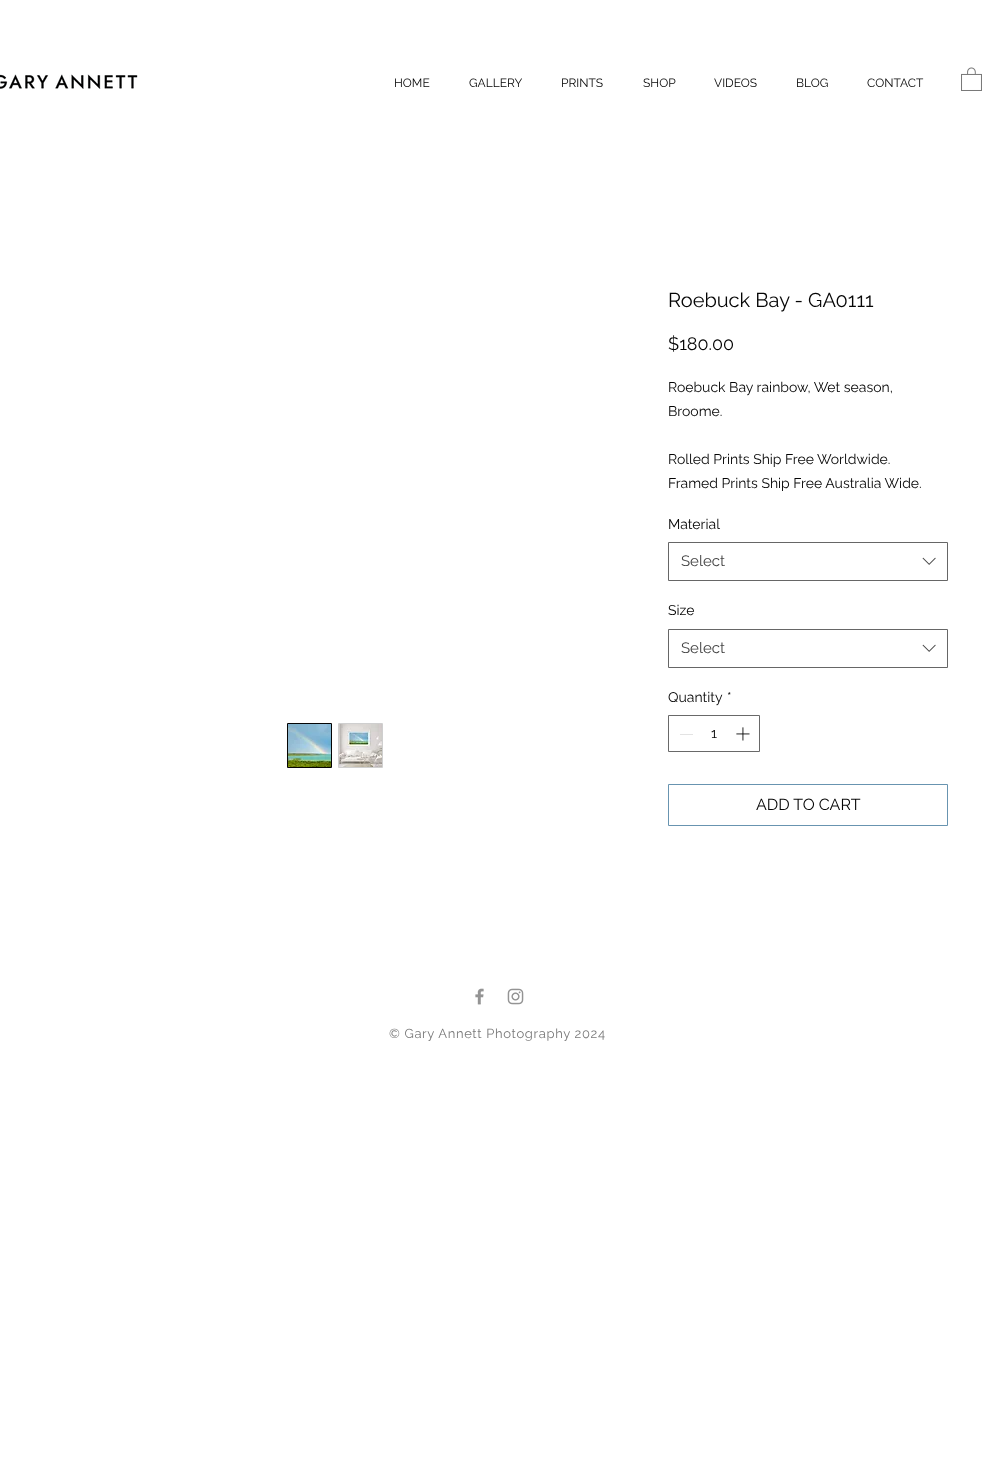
<svg xmlns="http://www.w3.org/2000/svg" width="996" height="1467" viewBox="0 0 996 1467">
  <rect width="100%" height="100%" fill="#fff"/>
  <image x="0" y="74" width="138" height="15" href="img/1.png"/>
  <image x="961" y="67" width="21" height="24" href="img/2.png"/>
  <path d="M287.5 723.5h44v44H287.5z" fill="none" stroke="#050505"/>
  <image x="288" y="724" width="43" height="43" href="img/3.png"/>
  <path d="M338.5 723.5h44v44H338.5z" fill="none" stroke="#cfcfcf"/>
  <image x="339" y="724" width="43" height="43" href="img/4.png"/>
  <path d="M668.5 542.5h279v38H668.5z" fill="none" stroke="#666"/>
  <image x="922" y="557" width="14" height="8" href="img/5.png"/>
  <path d="M668.5 629.5h279v38H668.5z" fill="none" stroke="#666"/>
  <image x="922" y="644" width="14" height="8" href="img/5.png"/>
  <path d="M668.5 715.5h91v36H668.5z" fill="none" stroke="#696969"/>
  <path d="M680 734h13v1H680z" fill="#e3e3e3"/>
  <image x="736" y="727" width="14" height="14" href="img/6.png"/>
  <path d="M668.5 784.5h279v41H668.5z" fill="none" stroke="#6894b0"/>
  <image x="475" y="988" width="9" height="17" href="img/7.png"/>
  <image x="507" y="988" width="17" height="17" href="img/8.png"/>
  <g font-family="Raleway" font-size="12" fill="#050505">
    <text x="394" y="87">HOME</text>
    <text x="469" y="87">GALLERY</text>
    <text x="561" y="87">PRINTS</text>
    <text x="643" y="87">SHOP</text>
    <text x="714" y="87">VIDEOS</text>
    <text x="796" y="87">BLOG</text>
    <text x="867" y="87">CONTACT</text>
  </g>
  <text x="668" y="307" font-family="Raleway" font-size="20" fill="#050505">Roebuck Bay - GA0111</text>
  <text x="668" y="350" font-family="Raleway" font-size="18" fill="#050505">$180.00</text>
  <g font-family="Raleway" font-size="14" fill="#050505">
    <text x="668" y="392">Roebuck Bay rainbow, Wet season,</text>
    <text x="668" y="416">Broome.</text>
    <text x="668" y="464">Rolled Prints Ship Free Worldwide.</text>
    <text x="668" y="488">Framed Prints Ship Free Australia Wide.</text>
    <text x="668" y="529">Material</text>
  </g>
  <text x="681" y="566" font-family="Raleway" font-size="15" fill="#444">Select</text>
  <text x="668" y="615" font-family="Raleway" font-size="14" fill="#050505">Size</text>
  <text x="681" y="653" font-family="Raleway" font-size="15" fill="#444">Select</text>
  <g font-family="Raleway" font-size="14" fill="#050505">
    <text x="668" y="702">Quantity</text>
    <text x="727" y="702">*</text>
    <text x="711" y="738">1</text>
  </g>
  <text x="756" y="810" font-family="Raleway" font-size="16" fill="#050505">ADD TO CART</text>
  <text x="389" y="1038" font-family="Raleway" font-size="13" letter-spacing="0.65" fill="#797979">© Gary Annett Photography 2024</text>
</svg>
